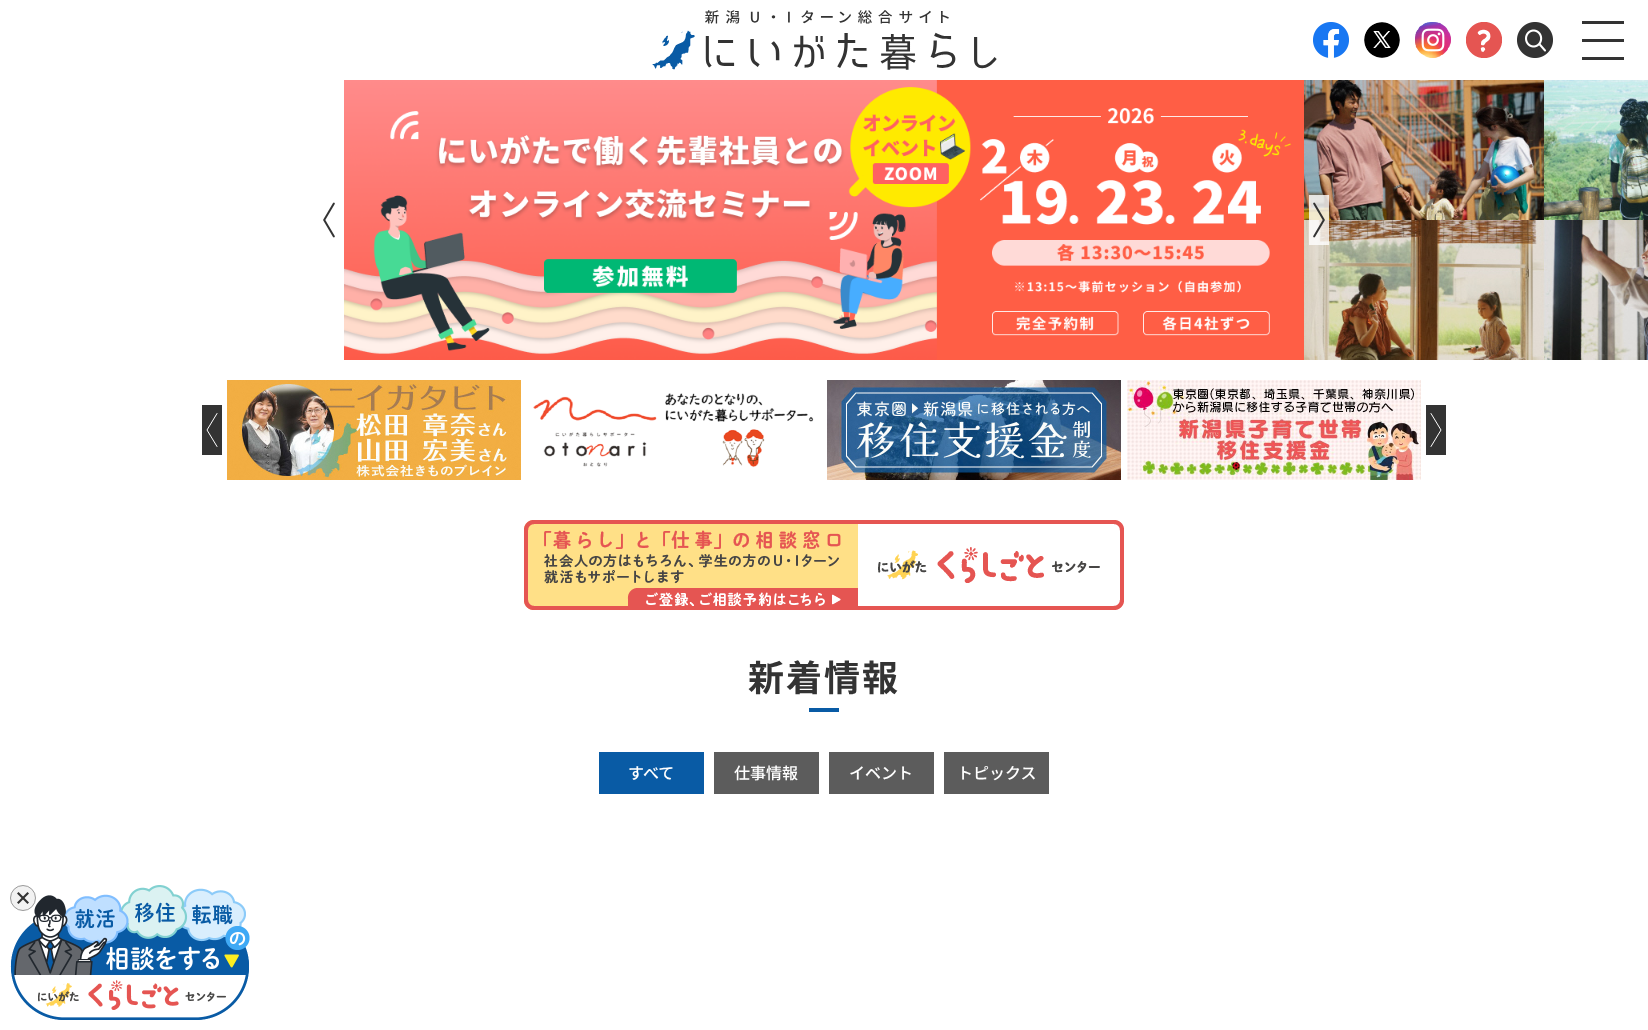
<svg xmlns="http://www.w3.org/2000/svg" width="1648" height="1030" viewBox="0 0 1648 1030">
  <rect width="100%" height="100%" fill="#fff"/>
  <image x="652" y="10" width="345" height="60" href="img/1.png"/>
  <image x="1313" y="22" width="36" height="36" href="img/2.png"/>
  <image x="1364" y="22" width="36" height="36" href="img/3.png"/>
  <image x="1415" y="22" width="36" height="36" href="img/4.png"/>
  <image x="1466" y="22" width="36" height="36" href="img/5.png"/>
  <image x="1517" y="22" width="36" height="36" href="img/6.png"/>
  <path d="M1582 39h42v3H1582z" fill="#333"/>
  <path d="M1582 21h42v3H1582z" fill="#333"/>
  <path d="M1582 57h42v3H1582z" fill="#333"/>
  <image x="344" y="80" width="960" height="280" href="img/7.png"/>
  <image x="1304" y="80" width="344" height="280" href="img/8.png"/>
  <image x="323" y="202" width="12" height="36" href="img/9.png"/>
  <image x="1309" y="195" width="20" height="50" href="img/10.png"/>
  <path d="M202 405h20v50H202z" fill="#333"/>
  <path d="M217 413.5L207 430L217 446.5" fill="none" stroke="#fff" stroke-linecap="round" stroke-linejoin="round"/>
  <image x="227" y="380" width="294" height="100" href="img/11.png"/>
  <image x="533" y="393" width="281" height="75" href="img/12.png"/>
  <image x="827" y="380" width="294" height="100" href="img/13.png"/>
  <image x="1127" y="380" width="294" height="100" href="img/14.png"/>
  <path d="M1426 405h20v50H1426z" fill="#333"/>
  <path d="M1431 446.5L1441 430L1431 413.5" fill="none" stroke="#fff" stroke-linecap="round" stroke-linejoin="round"/>
  <image x="524" y="520" width="600" height="90" href="img/15.png"/>
  <path d="M809 708h30v4H809z" fill="#095ba5"/>
  <path d="M599 752h105v42H599z" fill="#095ba5"/>
  <path d="M714 752h105v42H714z" fill="#5c5c5c"/>
  <path d="M829 752h105v42H829z" fill="#5c5c5c"/>
  <path d="M944 752h105v42H944z" fill="#5c5c5c"/>
  <image x="10" y="885" width="240" height="135" href="img/16.png"/>
  <circle cx="23" cy="898" r="12.5" fill="#f2f2f2" stroke="#999"/>
  <path d="M18.5 892L29 902.5L27.5 904L17 893.5Z" fill="#333"/>
  <path d="M17 902.5L27.5 892L29 893.5L18.5 904Z" fill="#333"/>
  <text x="748" y="691" font-family="Noto Sans JP" font-size="36" font-weight="bold" letter-spacing="2" fill="#333">新着情報</text>
  <g font-family="Noto Sans JP" font-size="16" font-weight="500" fill="#fff">
    <text x="628" y="779">すべて</text>
    <text x="734" y="779">仕事情報</text>
    <text x="849" y="779">イベント</text>
    <text x="957" y="779">トピックス</text>
  </g>
</svg>
